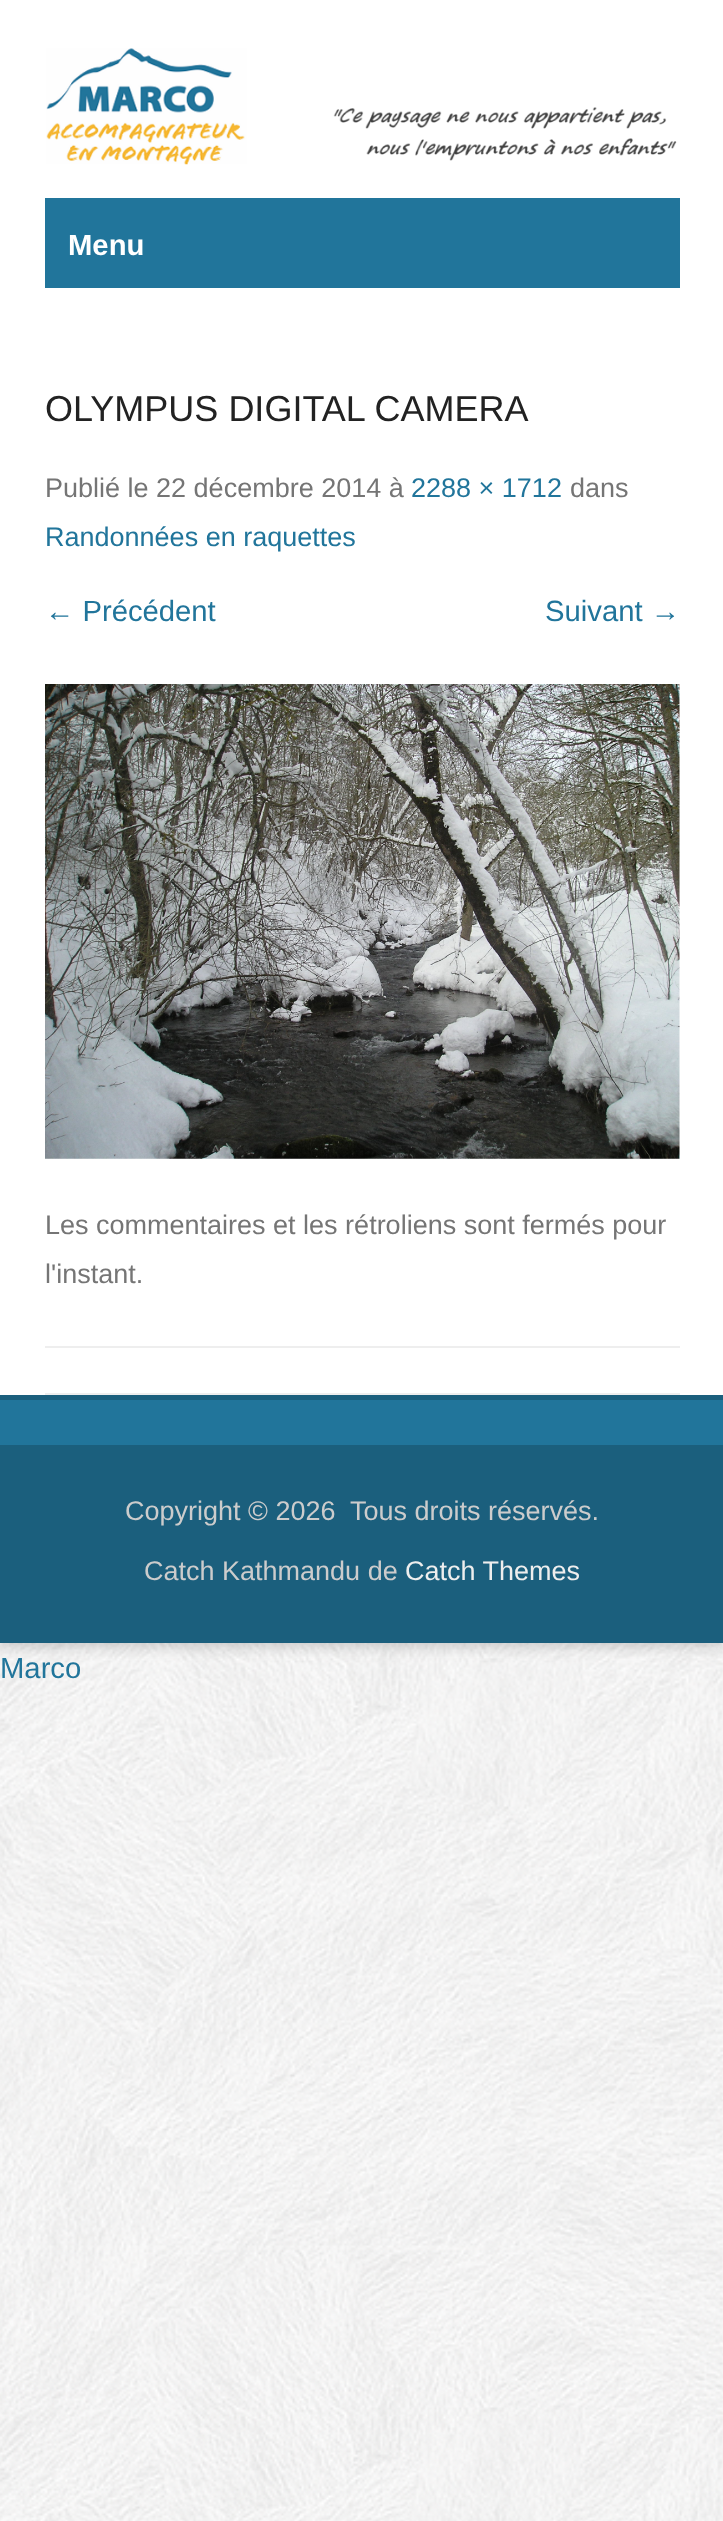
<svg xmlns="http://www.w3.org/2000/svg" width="723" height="2521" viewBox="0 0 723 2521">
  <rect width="100%" height="100%" fill="#fff"/>
  <image x="0" y="1643" width="723" height="878" href="img/1.png"/>
  <path d="M0 5h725v1642H0z" fill="#6464644d" filter="blur(7px)"/>
  <path d="M0 0h723v1395H0z" fill="#fff"/>
  <image x="46" y="48" width="631" height="117" href="img/2.png"/>
  <path d="M45 198h635v90H45z" fill="#21759b"/>
  <path d="M45 1393h635v2H45z" fill="#eee"/>
  <path d="M45 1346h635v2H45z" fill="#eee"/>
  <image x="45" y="684" width="635" height="475" href="img/3.png"/>
  <path d="M0 1395h723v5H0z" fill="#1b5f7d"/>
  <path d="M0 1400h723v45H0z" fill="#21759b"/>
  <path d="M0 1445h723v198H0z" fill="#1b5f7d"/>
  <text x="68" y="255" font-family="Liberation Sans" font-size="29.25" font-weight="bold" fill="#fff">Menu</text>
  <text x="45" y="421" font-family="Liberation Sans" font-size="36" fill="#222">OLYMPUS DIGITAL CAMERA</text>
  <text x="45" y="497" font-family="Liberation Sans" font-size="27" fill="#757575">Publié le 22 décembre 2014 à</text>
  <text x="411" y="497" font-family="Liberation Sans" font-size="27" fill="#21759b">2288 × 1712</text>
  <text x="570" y="497" font-family="Liberation Sans" font-size="27" fill="#757575">dans</text>
  <text x="45" y="546" font-family="Liberation Sans" font-size="27" fill="#21759b">Randonnées en raquettes</text>
  <g font-family="Liberation Sans" font-size="29.25" fill="#21759b">
    <text x="45" y="621">← Précédent</text>
    <text x="545" y="621">Suivant →</text>
  </g>
  <g font-family="Liberation Sans" font-size="27" fill="#757575">
    <text x="45" y="1234">Les commentaires et les rétroliens sont fermés pour</text>
    <text x="45" y="1283">l'instant.</text>
  </g>
  <g font-family="Liberation Sans" font-size="27" fill="#ccc">
    <text x="125" y="1520">Copyright © 2026</text>
    <text x="350" y="1520">Tous droits réservés.</text>
    <text x="144" y="1580">Catch Kathmandu de</text>
  </g>
  <text x="405" y="1580" font-family="Liberation Sans" font-size="27" fill="#eee">Catch Themes</text>
  <text x="0" y="1678" font-family="Liberation Sans" font-size="29.25" fill="#21759b">Marco</text>
</svg>
